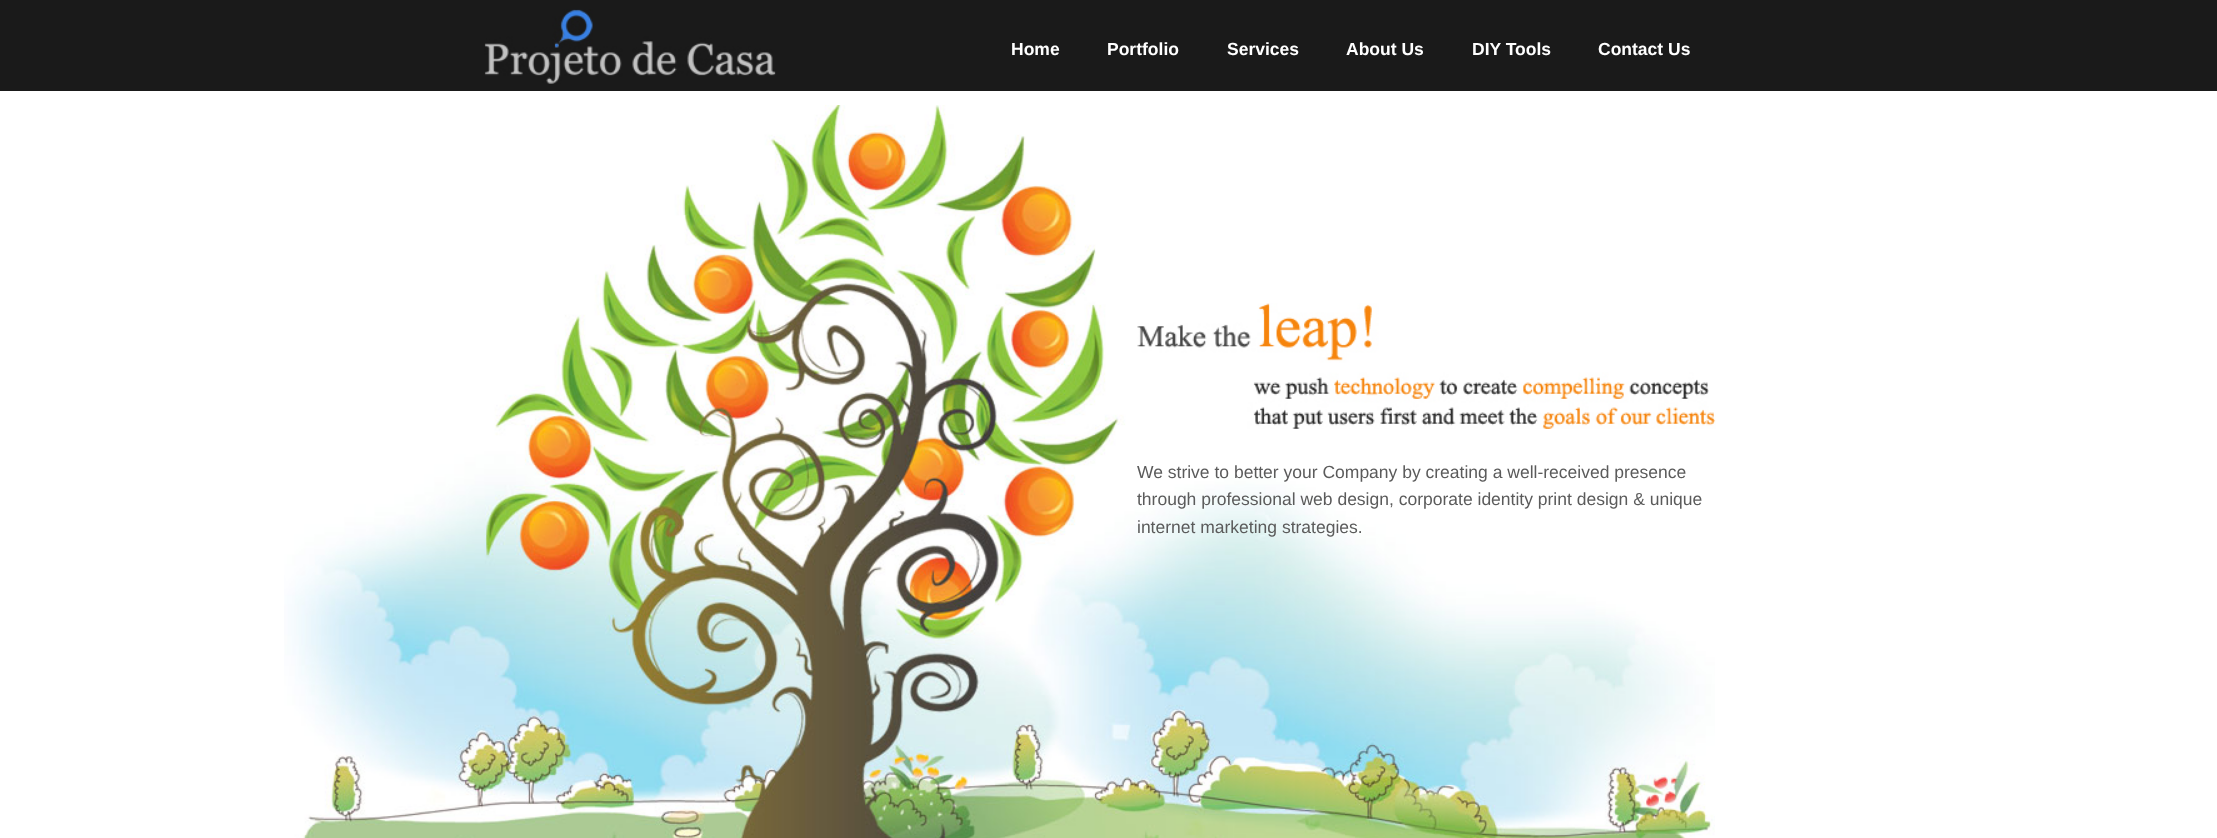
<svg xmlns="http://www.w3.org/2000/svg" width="2217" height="838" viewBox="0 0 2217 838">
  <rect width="100%" height="100%" fill="#fff"/>
  <path d="M0 0h2217v91H0z" fill="#1a1a1a"/>
  <image x="484" y="9" width="292" height="75" href="img/1.png"/>
  <image x="284" y="105" width="1431" height="733" href="img/2.png"/>
  <image x="1137" y="303" width="579" height="126" href="img/3.png"/>
  <g font-family="Liberation Sans" font-size="17.5" font-weight="bold" fill="#fff">
    <text x="1011" y="55">Home</text>
    <text x="1107" y="55">Portfolio</text>
    <text x="1227" y="55">Services</text>
    <text x="1346" y="55">About Us</text>
    <text x="1472" y="55">DIY Tools</text>
    <text x="1598" y="55">Contact Us</text>
  </g>
  <g font-family="Liberation Sans" font-size="17.5" fill="#5b5b5b">
    <text x="1137" y="478">We strive to better your Company by creating a well-received presence</text>
    <text x="1137" y="505">through professional web design, corporate identity print design &amp; unique</text>
    <text x="1137" y="533">internet marketing strategies.</text>
  </g>
</svg>
